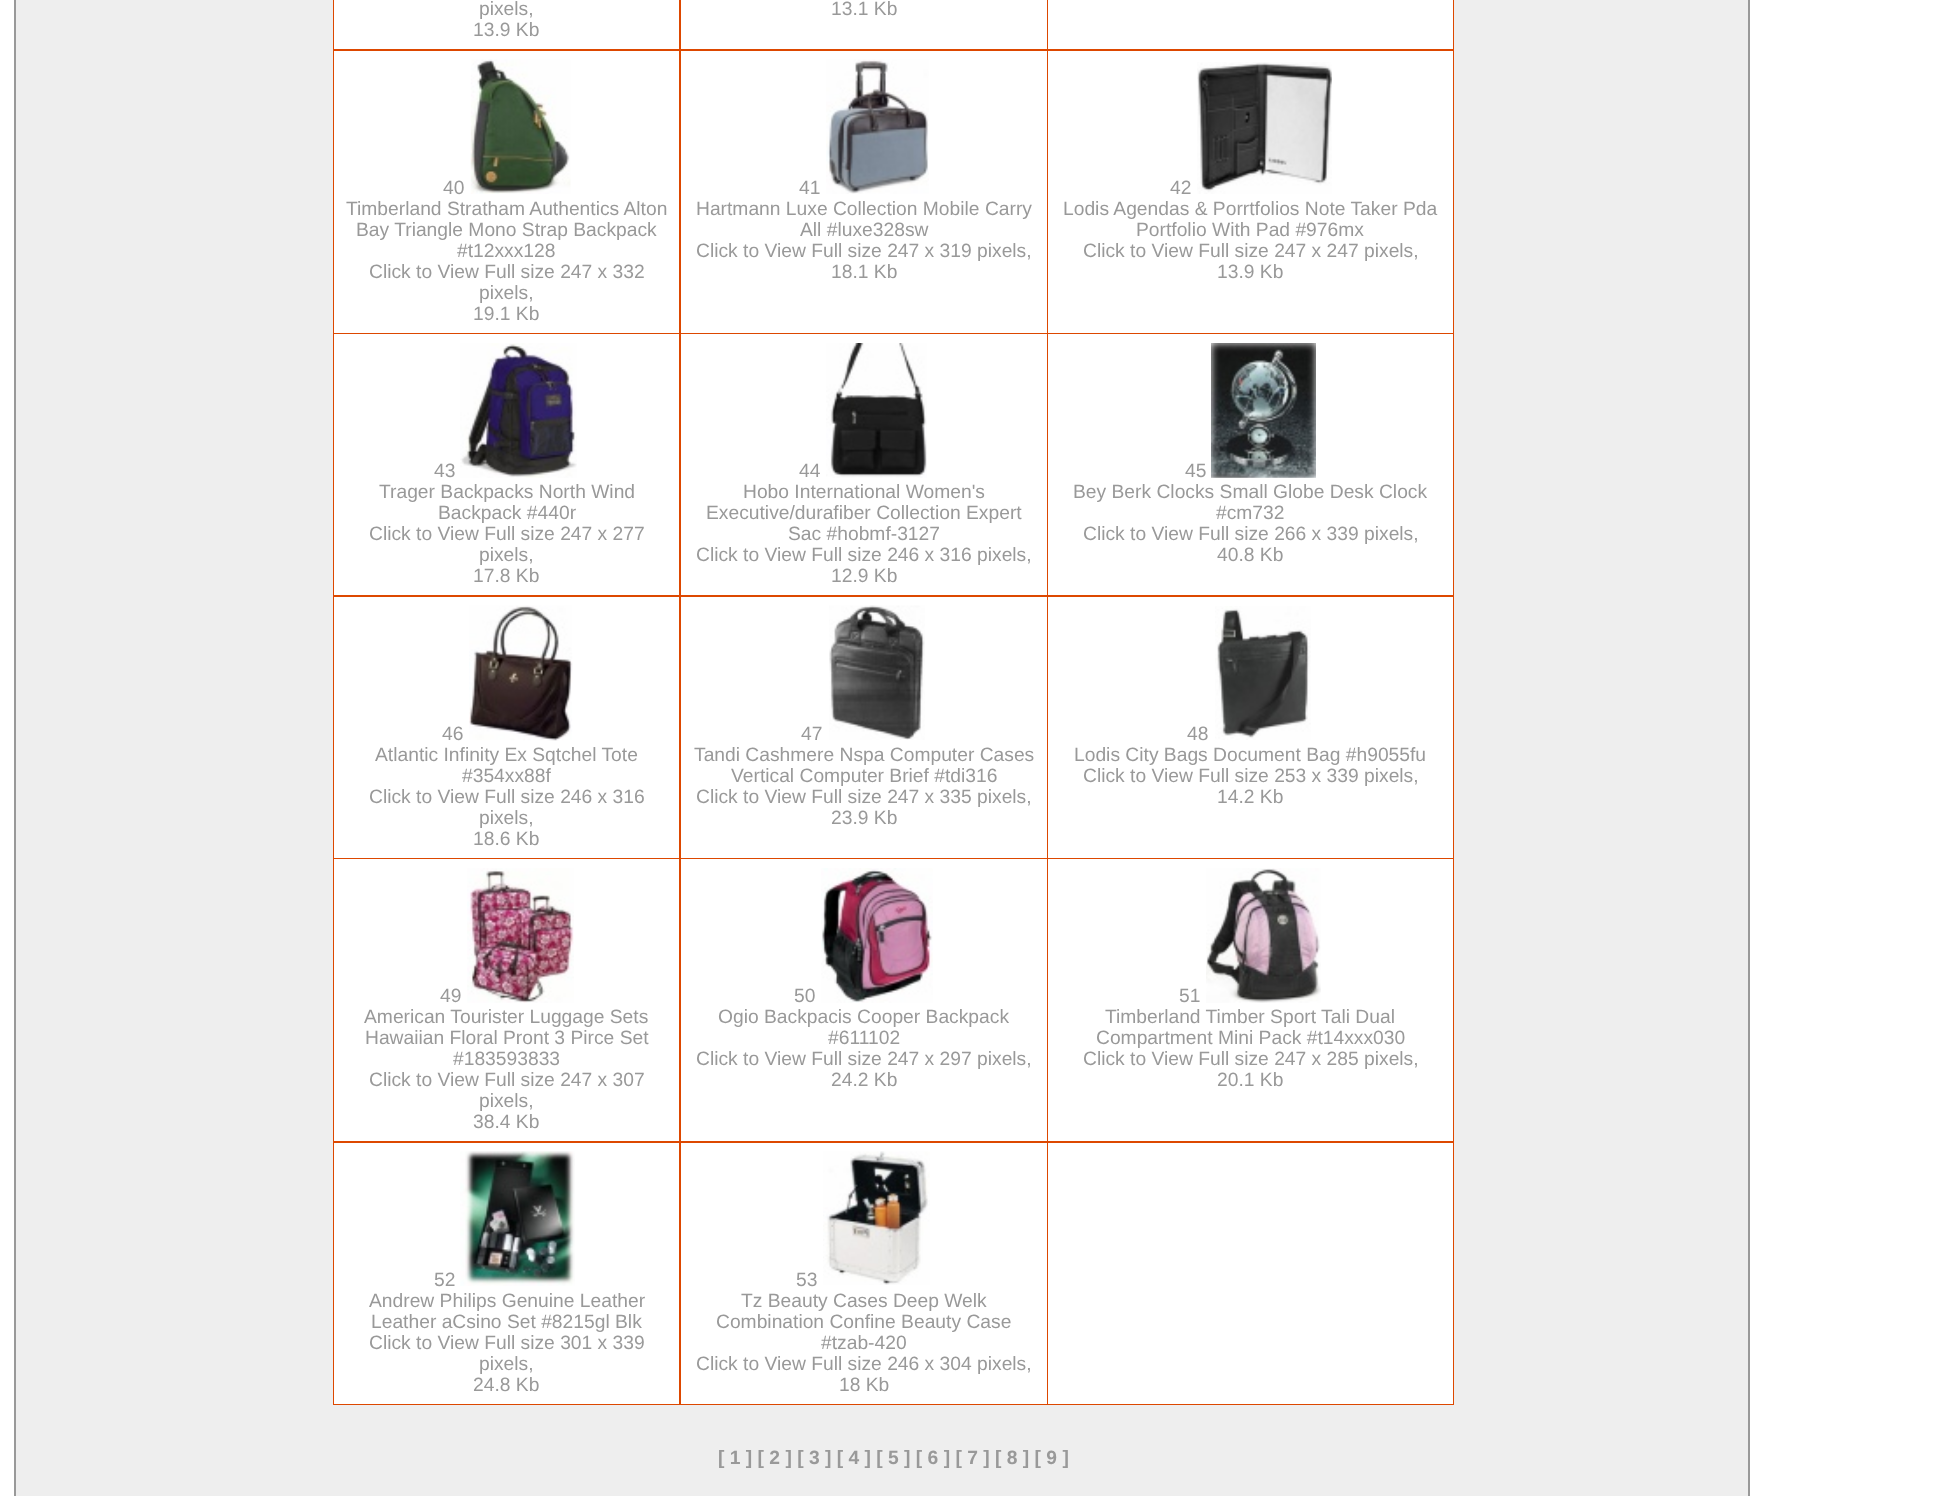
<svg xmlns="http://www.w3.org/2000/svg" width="1956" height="1496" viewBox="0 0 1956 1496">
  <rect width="100%" height="100%" fill="#fff"/>
  <path d="M15 -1h1734v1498H15z" fill="#eee" stroke="#999" stroke-width="2"/>
  <path d="M333 0h1121v1405H333z" fill="#dd4800"/>
  <path d="M334 0h345v49H334z" fill="#fff"/>
  <path d="M681 0h366v49H681z" fill="#fff"/>
  <path d="M1048 0h405v49H1048z" fill="#fff"/>
  <path d="M334 51h345v282H334z" fill="#fff"/>
  <image x="470" y="59" width="101" height="135" href="img/1.png"/>
  <path d="M681 51h366v282H681z" fill="#fff"/>
  <image x="826" y="59" width="103" height="135" href="img/2.png"/>
  <path d="M1048 51h405v282H1048z" fill="#fff"/>
  <image x="1197" y="62" width="135" height="132" href="img/3.png"/>
  <path d="M334 334h345v261H334z" fill="#fff"/>
  <image x="460" y="343" width="117" height="135" href="img/4.png"/>
  <path d="M681 334h366v261H681z" fill="#fff"/>
  <image x="826" y="343" width="101" height="135" href="img/5.png"/>
  <path d="M1048 334h405v261H1048z" fill="#fff"/>
  <image x="1211" y="343" width="105" height="135" href="img/6.png"/>
  <path d="M334 597h345v261H334z" fill="#fff"/>
  <image x="469" y="605" width="104" height="136" href="img/7.png"/>
  <path d="M681 597h366v261H681z" fill="#fff"/>
  <image x="829" y="605" width="96" height="135" href="img/8.png"/>
  <path d="M1048 597h405v261H1048z" fill="#fff"/>
  <image x="1215" y="606" width="96" height="134" href="img/9.png"/>
  <path d="M334 859h345v282H334z" fill="#fff"/>
  <image x="467" y="868" width="107" height="135" href="img/10.png"/>
  <path d="M681 859h366v282H681z" fill="#fff"/>
  <image x="821" y="868" width="112" height="135" href="img/11.png"/>
  <path d="M1048 859h405v282H1048z" fill="#fff"/>
  <image x="1206" y="868" width="115" height="135" href="img/12.png"/>
  <path d="M334 1143h345v261H334z" fill="#fff"/>
  <image x="460" y="1151" width="115" height="135" href="img/13.png"/>
  <path d="M681 1143h366v261H681z" fill="#fff"/>
  <image x="823" y="1151" width="107" height="134" href="img/14.png"/>
  <path d="M1048 1143h405v261H1048z" fill="#fff"/>
  <g font-family="Liberation Sans" font-size="19.25" fill="#999">
    <text x="479" y="15">pixels,</text>
    <text x="473" y="36">13.9 Kb</text>
    <text x="831" y="15">13.1 Kb</text>
    <text x="443" y="194">40</text>
    <text x="346" y="215">Timberland Stratham Authentics Alton</text>
    <text x="356" y="236">Bay Triangle Mono Strap Backpack</text>
    <text x="457" y="257">#t12xxx128</text>
    <text x="369" y="278">Click to View Full size 247 x 332</text>
    <text x="479" y="299">pixels,</text>
    <text x="473" y="320">19.1 Kb</text>
    <text x="799" y="194">41</text>
    <text x="696" y="215">Hartmann Luxe Collection Mobile Carry</text>
    <text x="800" y="236">All #luxe328sw</text>
    <text x="696" y="257">Click to View Full size 247 x 319 pixels,</text>
    <text x="831" y="278">18.1 Kb</text>
    <text x="1170" y="194">42</text>
    <text x="1063" y="215">Lodis Agendas &amp; Porrtfolios Note Taker Pda</text>
    <text x="1136" y="236">Portfolio With Pad #976mx</text>
    <text x="1083" y="257">Click to View Full size 247 x 247 pixels,</text>
    <text x="1217" y="278">13.9 Kb</text>
    <text x="434" y="477">43</text>
    <text x="379" y="498">Trager Backpacks North Wind</text>
    <text x="438" y="519">Backpack #440r</text>
    <text x="369" y="540">Click to View Full size 247 x 277</text>
    <text x="479" y="561">pixels,</text>
    <text x="473" y="582">17.8 Kb</text>
    <text x="799" y="477">44</text>
    <text x="743" y="498">Hobo International Women's</text>
    <text x="706" y="519">Executive/durafiber Collection Expert</text>
    <text x="788" y="540">Sac #hobmf-3127</text>
    <text x="696" y="561">Click to View Full size 246 x 316 pixels,</text>
    <text x="831" y="582">12.9 Kb</text>
    <text x="1185" y="477">45</text>
    <text x="1073" y="498">Bey Berk Clocks Small Globe Desk Clock</text>
    <text x="1216" y="519">#cm732</text>
    <text x="1083" y="540">Click to View Full size 266 x 339 pixels,</text>
    <text x="1217" y="561">40.8 Kb</text>
    <text x="442" y="740">46</text>
    <text x="375" y="761">Atlantic Infinity Ex Sqtchel Tote</text>
    <text x="462" y="782">#354xx88f</text>
    <text x="369" y="803">Click to View Full size 246 x 316</text>
    <text x="479" y="824">pixels,</text>
    <text x="473" y="845">18.6 Kb</text>
    <text x="801" y="740">47</text>
    <text x="694" y="761">Tandi Cashmere Nspa Computer Cases</text>
    <text x="731" y="782">Vertical Computer Brief #tdi316</text>
    <text x="696" y="803">Click to View Full size 247 x 335 pixels,</text>
    <text x="831" y="824">23.9 Kb</text>
    <text x="1187" y="740">48</text>
    <text x="1074" y="761">Lodis City Bags Document Bag #h9055fu</text>
    <text x="1083" y="782">Click to View Full size 253 x 339 pixels,</text>
    <text x="1217" y="803">14.2 Kb</text>
    <text x="440" y="1002">49</text>
    <text x="364" y="1023">American Tourister Luggage Sets</text>
    <text x="365" y="1044">Hawaiian Floral Pront 3 Pirce Set</text>
    <text x="453" y="1065">#183593833</text>
    <text x="369" y="1086">Click to View Full size 247 x 307</text>
    <text x="479" y="1107">pixels,</text>
    <text x="473" y="1128">38.4 Kb</text>
    <text x="794" y="1002">50</text>
    <text x="718" y="1023">Ogio Backpacis Cooper Backpack</text>
    <text x="828" y="1044">#611102</text>
    <text x="696" y="1065">Click to View Full size 247 x 297 pixels,</text>
    <text x="831" y="1086">24.2 Kb</text>
    <text x="1179" y="1002">51</text>
    <text x="1105" y="1023">Timberland Timber Sport Tali Dual</text>
    <text x="1096" y="1044">Compartment Mini Pack #t14xxx030</text>
    <text x="1083" y="1065">Click to View Full size 247 x 285 pixels,</text>
    <text x="1217" y="1086">20.1 Kb</text>
    <text x="434" y="1286">52</text>
    <text x="369" y="1307">Andrew Philips Genuine Leather</text>
    <text x="371" y="1328">Leather aCsino Set #8215gl Blk</text>
    <text x="369" y="1349">Click to View Full size 301 x 339</text>
    <text x="479" y="1370">pixels,</text>
    <text x="473" y="1391">24.8 Kb</text>
    <text x="796" y="1286">53</text>
    <text x="741" y="1307">Tz Beauty Cases Deep Welk</text>
    <text x="716" y="1328">Combination Confine Beauty Case</text>
    <text x="821" y="1349">#tzab-420</text>
    <text x="696" y="1370">Click to View Full size 246 x 304 pixels,</text>
    <text x="839" y="1391">18 Kb</text>
  </g>
  <text x="718" y="1464" font-family="Liberation Sans" font-size="19.25" font-weight="bold" fill="#999">[ 1 ] [ 2 ] [ 3 ] [ 4 ] [ 5 ] [ 6 ] [ 7 ] [ 8 ] [ 9 ]</text>
</svg>
